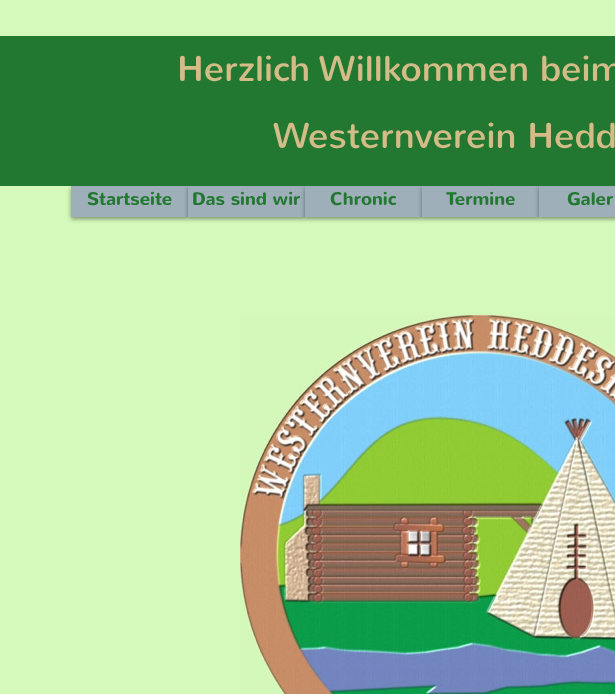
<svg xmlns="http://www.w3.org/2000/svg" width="615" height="694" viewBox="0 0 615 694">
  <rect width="100%" height="100%" fill="#d5f9ba"/>
  <path d="M71 188h117v31H71z" fill="#00000066" filter="blur(2px)"/>
  <path d="M71 186h117v31H71z" fill="#9eafb9"/>
  <path d="M188 188h117v31H188z" fill="#00000066" filter="blur(2px)"/>
  <path d="M188 186h117v31H188z" fill="#9eafb9"/>
  <path d="M305 188h117v31H305z" fill="#00000066" filter="blur(2px)"/>
  <path d="M305 186h117v31H305z" fill="#9eafb9"/>
  <path d="M422 188h117v31H422z" fill="#00000066" filter="blur(2px)"/>
  <path d="M422 186h117v31H422z" fill="#9eafb9"/>
  <path d="M539 188h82v31H539z" fill="#00000066" filter="blur(2px)"/>
  <path d="M0 36h615v150H0z" fill="#227830"/>
  <path d="M539 186h76v31H539z" fill="#9eafb9"/>
  <image x="240" y="315" width="375" height="379" href="img/1.png"/>
  <g font-family="Nunito" font-size="36" fill="#d3bc87">
    <text x="177" y="81">Herzlich Willkommen beim</text>
    <text x="273" y="148">Westernverein Hedd</text>
  </g>
  <g font-family="Nunito" font-size="18" font-weight="bold" fill="#227830">
    <text x="87" y="205">Startseite</text>
    <text x="192" y="205">Das sind wir</text>
    <text x="330" y="205">Chronic</text>
    <text x="446" y="205">Termine</text>
    <text x="567" y="205">Galer</text>
  </g>
</svg>
